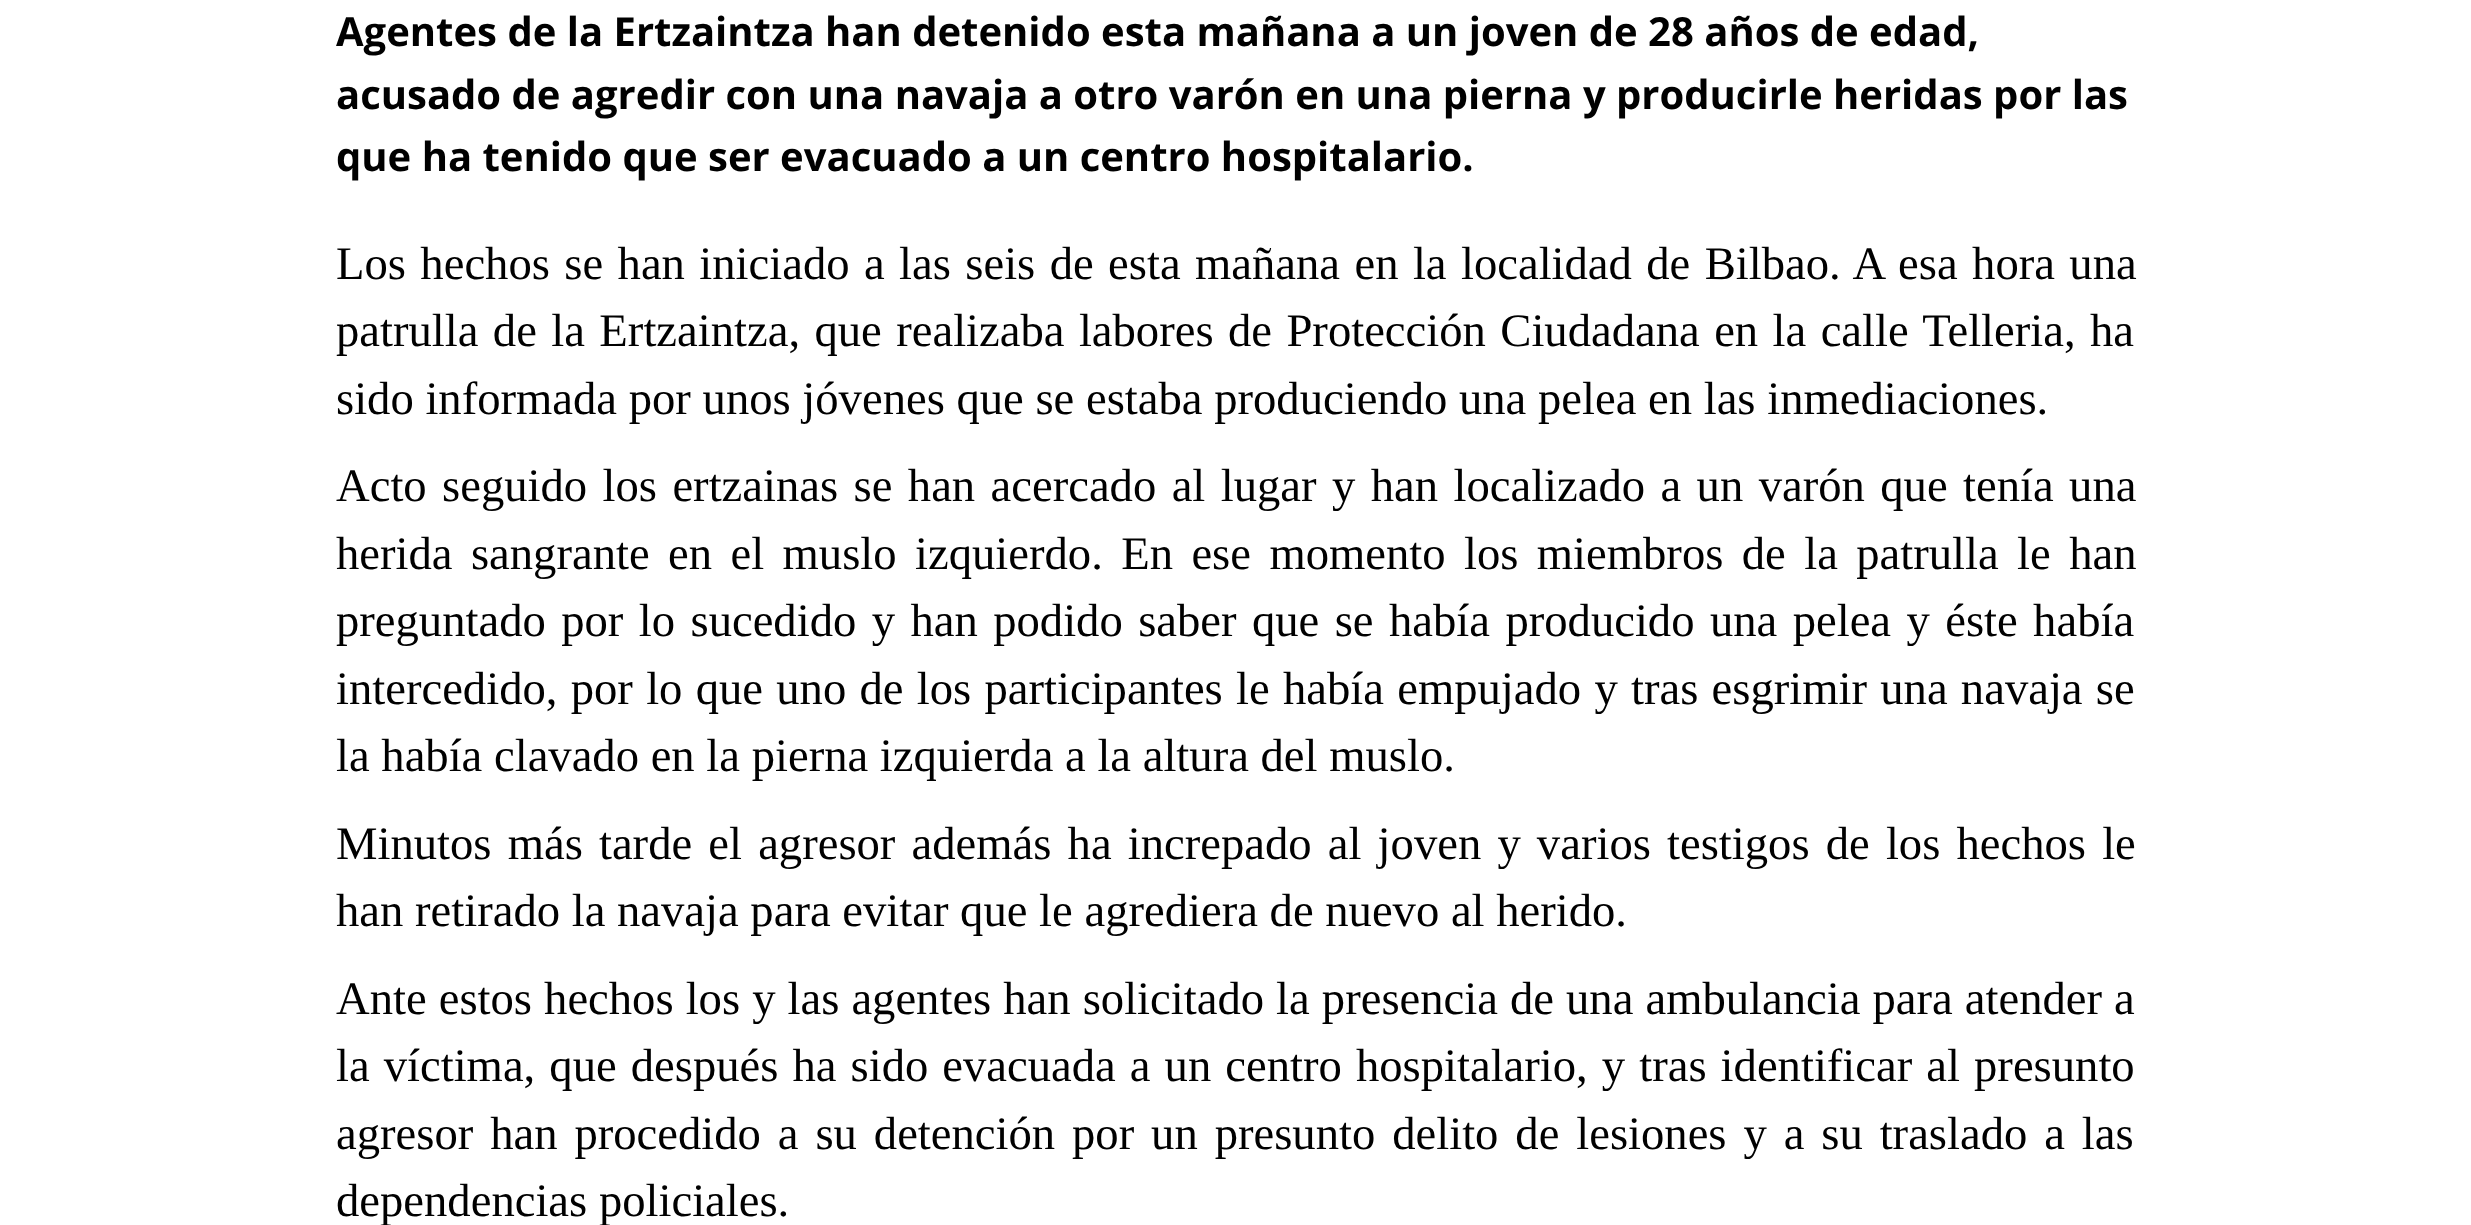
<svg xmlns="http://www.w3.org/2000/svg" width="2471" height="1225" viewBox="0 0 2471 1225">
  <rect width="100%" height="100%" fill="#fff"/>
  <g font-family="Open Sans" font-size="40" font-weight="bold" fill="#000">
    <text x="336" y="46">Agentes de la Ertzaintza han detenido esta mañana a un joven de 28 años de edad,</text>
    <text x="336" y="109">acusado de agredir con una navaja a otro varón en una pierna y producirle heridas por las</text>
    <text x="336" y="171">que ha tenido que ser evacuado a un centro hospitalario.</text>
  </g>
  <g font-family="Liberation Serif" font-size="46.65" fill="#000">
    <text x="336" y="279" word-spacing="2.75">Los hechos se han iniciado a las seis de esta mañana en la localidad de Bilbao. A esa hora una</text>
    <text x="336" y="346" word-spacing="2.75">patrulla de la Ertzaintza, que realizaba labores de Protección Ciudadana en la calle Telleria, ha</text>
    <text x="336" y="414">sido informada por unos jóvenes que se estaba produciendo una pelea en las inmediaciones.</text>
    <text x="336" y="501" word-spacing="3.75">Acto seguido los ertzainas se han acercado al lugar y han localizado a un varón que tenía una</text>
    <text x="336" y="569" word-spacing="6.75">herida sangrante en el muslo izquierdo. En ese momento los miembros de la patrulla le han</text>
    <text x="336" y="636" word-spacing="3.75">preguntado por lo sucedido y han podido saber que se había producido una pelea y éste había</text>
    <text x="336" y="704" word-spacing="1.6">intercedido, por lo que uno de los participantes le había empujado y tras esgrimir una navaja se</text>
    <text x="336" y="771">la había clavado en la pierna izquierda a la altura del muslo.</text>
    <text x="336" y="859" word-spacing="4.5">Minutos más tarde el agresor además ha increpado al joven y varios testigos de los hechos le</text>
    <text x="336" y="926">han retirado la navaja para evitar que le agrediera de nuevo al herido.</text>
    <text x="336" y="1014" word-spacing="0.4">Ante estos hechos los y las agentes han solicitado la presencia de una ambulancia para atender a</text>
    <text x="336" y="1081" word-spacing="2.4">la víctima, que después ha sido evacuada a un centro hospitalario, y tras identificar al presunto</text>
    <text x="336" y="1149" word-spacing="5.25">agresor han procedido a su detención por un presunto delito de lesiones y a su traslado a las</text>
    <text x="336" y="1216">dependencias policiales.</text>
  </g>
</svg>
